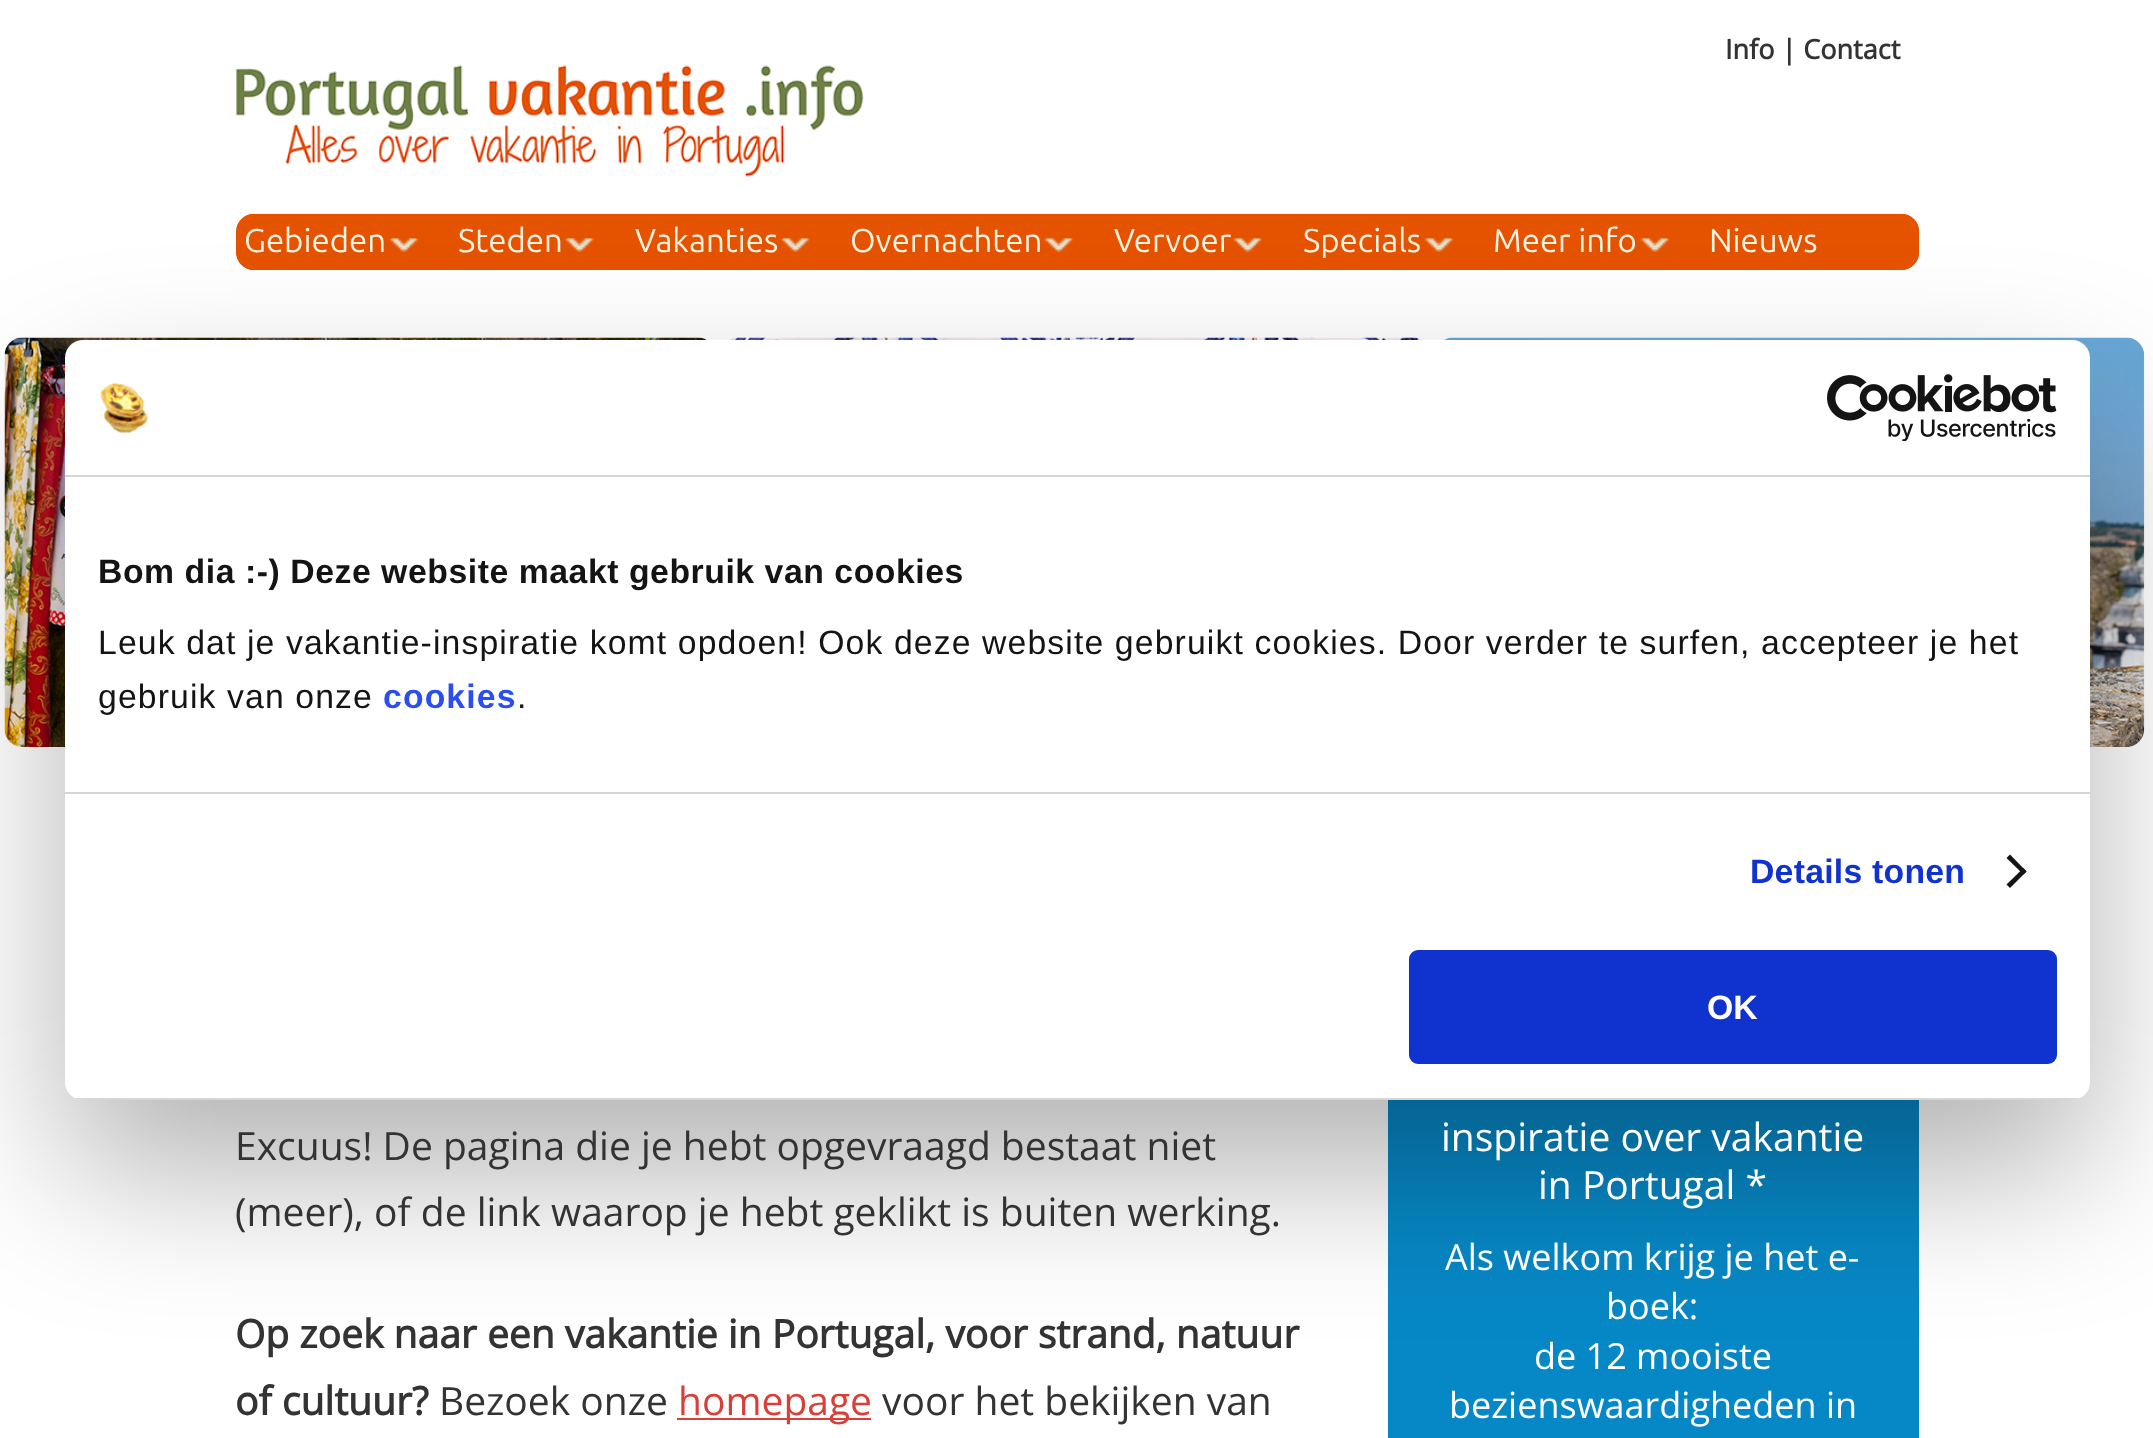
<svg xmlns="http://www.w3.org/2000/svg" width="2153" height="1438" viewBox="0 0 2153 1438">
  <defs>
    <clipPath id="clip1"><rect x="65" y="340" width="2025" height="760" rx="18"/></clipPath>
  </defs>
  <rect width="100%" height="100%" fill="#fff"/>
  <image x="236" y="65" width="628" height="112" href="img/1.png"/>
  <rect x="236" y="214" width="1683" height="56" rx="18" fill="#e55300"/>
  <image x="236" y="213" width="1684" height="57" href="img/2.png"/>
  <image x="389" y="238" width="30" height="14" href="img/3.png"/>
  <image x="564" y="238" width="30" height="14" href="img/4.png"/>
  <image x="780" y="238" width="30" height="14" href="img/5.png"/>
  <image x="1044" y="238" width="30" height="14" href="img/6.png"/>
  <image x="1233" y="238" width="30" height="14" href="img/7.png"/>
  <image x="1424" y="238" width="30" height="14" href="img/3.png"/>
  <image x="1640" y="238" width="30" height="14" href="img/8.png"/>
  <image x="4" y="337" width="703" height="410" href="img/11.png"/>
  <image x="729" y="337" width="693" height="3" href="img/12.png"/>
  <image x="1444" y="337" width="701" height="410" href="img/13.png"/>
  <path d="M1388 1100h531v338H1388z" fill="#0788c6"/>
  <rect x="65" y="412" width="2025" height="760" rx="18" fill="#0000004d" filter="blur(76.5px)"/>
  <rect x="65" y="340" width="2025" height="760" rx="18" fill="#fff"/>
  <path d="M65 475h2025v2H65z" fill="#d6d6d6"/>
  <image x="100" y="382" width="49" height="52" href="img/9.png"/>
  <image x="1827" y="374" width="230" height="67" href="img/10.png"/>
  <path d="M65 792h2025v2H65z" fill="#d6d6d6"/>
  <path d="M2010 854.5L2026.5 871.5L2023.5 874.5L2006.5 858Z" fill="#141414"/>
  <path d="M2023.5 868L2026.5 871.5L2010 888L2006.5 884.5Z" fill="#141414"/>
  <g clip-path="url(#clip1)">
    <path d="M75 1098h2005v2H75z" fill="#d6d6d6"/>
  </g>
  <rect x="1411.5" y="952.5" width="643" height="109" rx="6.5" fill="#1032cf" stroke="#1032cf" stroke-width="5"/>
  <path d="M677 1418h194v2H677z" fill="#d93e39"/>
  <text x="1725" y="59" font-family="Open Sans" font-size="27" font-weight="bold" fill="#333">Info | Contact</text>
  <g font-family="Ubuntu" font-size="33" fill="#f9f4e1">
    <text x="244" y="252">Gebieden</text>
    <text x="458" y="252">Steden</text>
    <text x="635" y="252">Vakanties</text>
    <text x="850" y="252">Overnachten</text>
    <text x="1114" y="252">Vervoer</text>
    <text x="1303" y="252">Specials</text>
    <text x="1493" y="252">Meer info</text>
    <text x="1709" y="252">Nieuws</text>
  </g>
  <text x="98" y="583" font-family="Liberation Sans" font-size="33.75" font-weight="bold" letter-spacing="0.55" fill="#141414">Bom dia :-) Deze website maakt gebruik van cookies</text>
  <g font-family="Liberation Sans" font-size="33.75" letter-spacing="1.12" fill="#141414">
    <text x="98" y="654">Leuk dat je vakantie-inspiratie komt opdoen! Ook deze website gebruikt cookies. Door verder te surfen, accepteer je het</text>
    <text x="98" y="708">gebruik van onze</text>
  </g>
  <text x="383" y="708" font-family="Liberation Sans" font-size="33.75" font-weight="bold" letter-spacing="1.12" fill="#2a4eef">cookies</text>
  <text x="517" y="708" font-family="Liberation Sans" font-size="33.75" letter-spacing="1.12" fill="#141414">.</text>
  <text x="1750" y="883" font-family="Liberation Sans" font-size="33.75" font-weight="bold" letter-spacing="0.25" fill="#1032cf">Details tonen</text>
  <text x="1707" y="1019" font-family="Liberation Sans" font-size="33.75" font-weight="bold" fill="#fff">OK</text>
  <g font-family="Open Sans" font-size="39" fill="#333">
    <text x="235" y="1160">Excuus! De pagina die je hebt opgevraagd bestaat niet</text>
    <text x="235" y="1226">(meer), of de link waarop je hebt geklikt is buiten werking.</text>
  </g>
  <g font-family="Open Sans" font-size="39" font-weight="bold" fill="#333">
    <text x="235" y="1348">Op zoek naar een vakantie in Portugal, voor strand, natuur</text>
    <text x="235" y="1415">of cultuur?</text>
  </g>
  <text x="439" y="1415" font-family="Open Sans" font-size="39" fill="#333">Bezoek onze</text>
  <text x="678" y="1415" font-family="Open Sans" font-size="39" fill="#d93e39">homepage</text>
  <text x="882" y="1415" font-family="Open Sans" font-size="39" fill="#333">voor het bekijken van</text>
  <g font-family="Open Sans" font-size="39" fill="#fff">
    <text x="1441" y="1151">inspiratie over vakantie</text>
    <text x="1538" y="1199">in Portugal *</text>
  </g>
  <g font-family="Open Sans" font-size="36" fill="#fff">
    <text x="1445" y="1270">Als welkom krijg je het e-</text>
    <text x="1606" y="1319">boek:</text>
    <text x="1534" y="1369">de 12 mooiste</text>
    <text x="1449" y="1418">bezienswaardigheden in</text>
  </g>
</svg>
